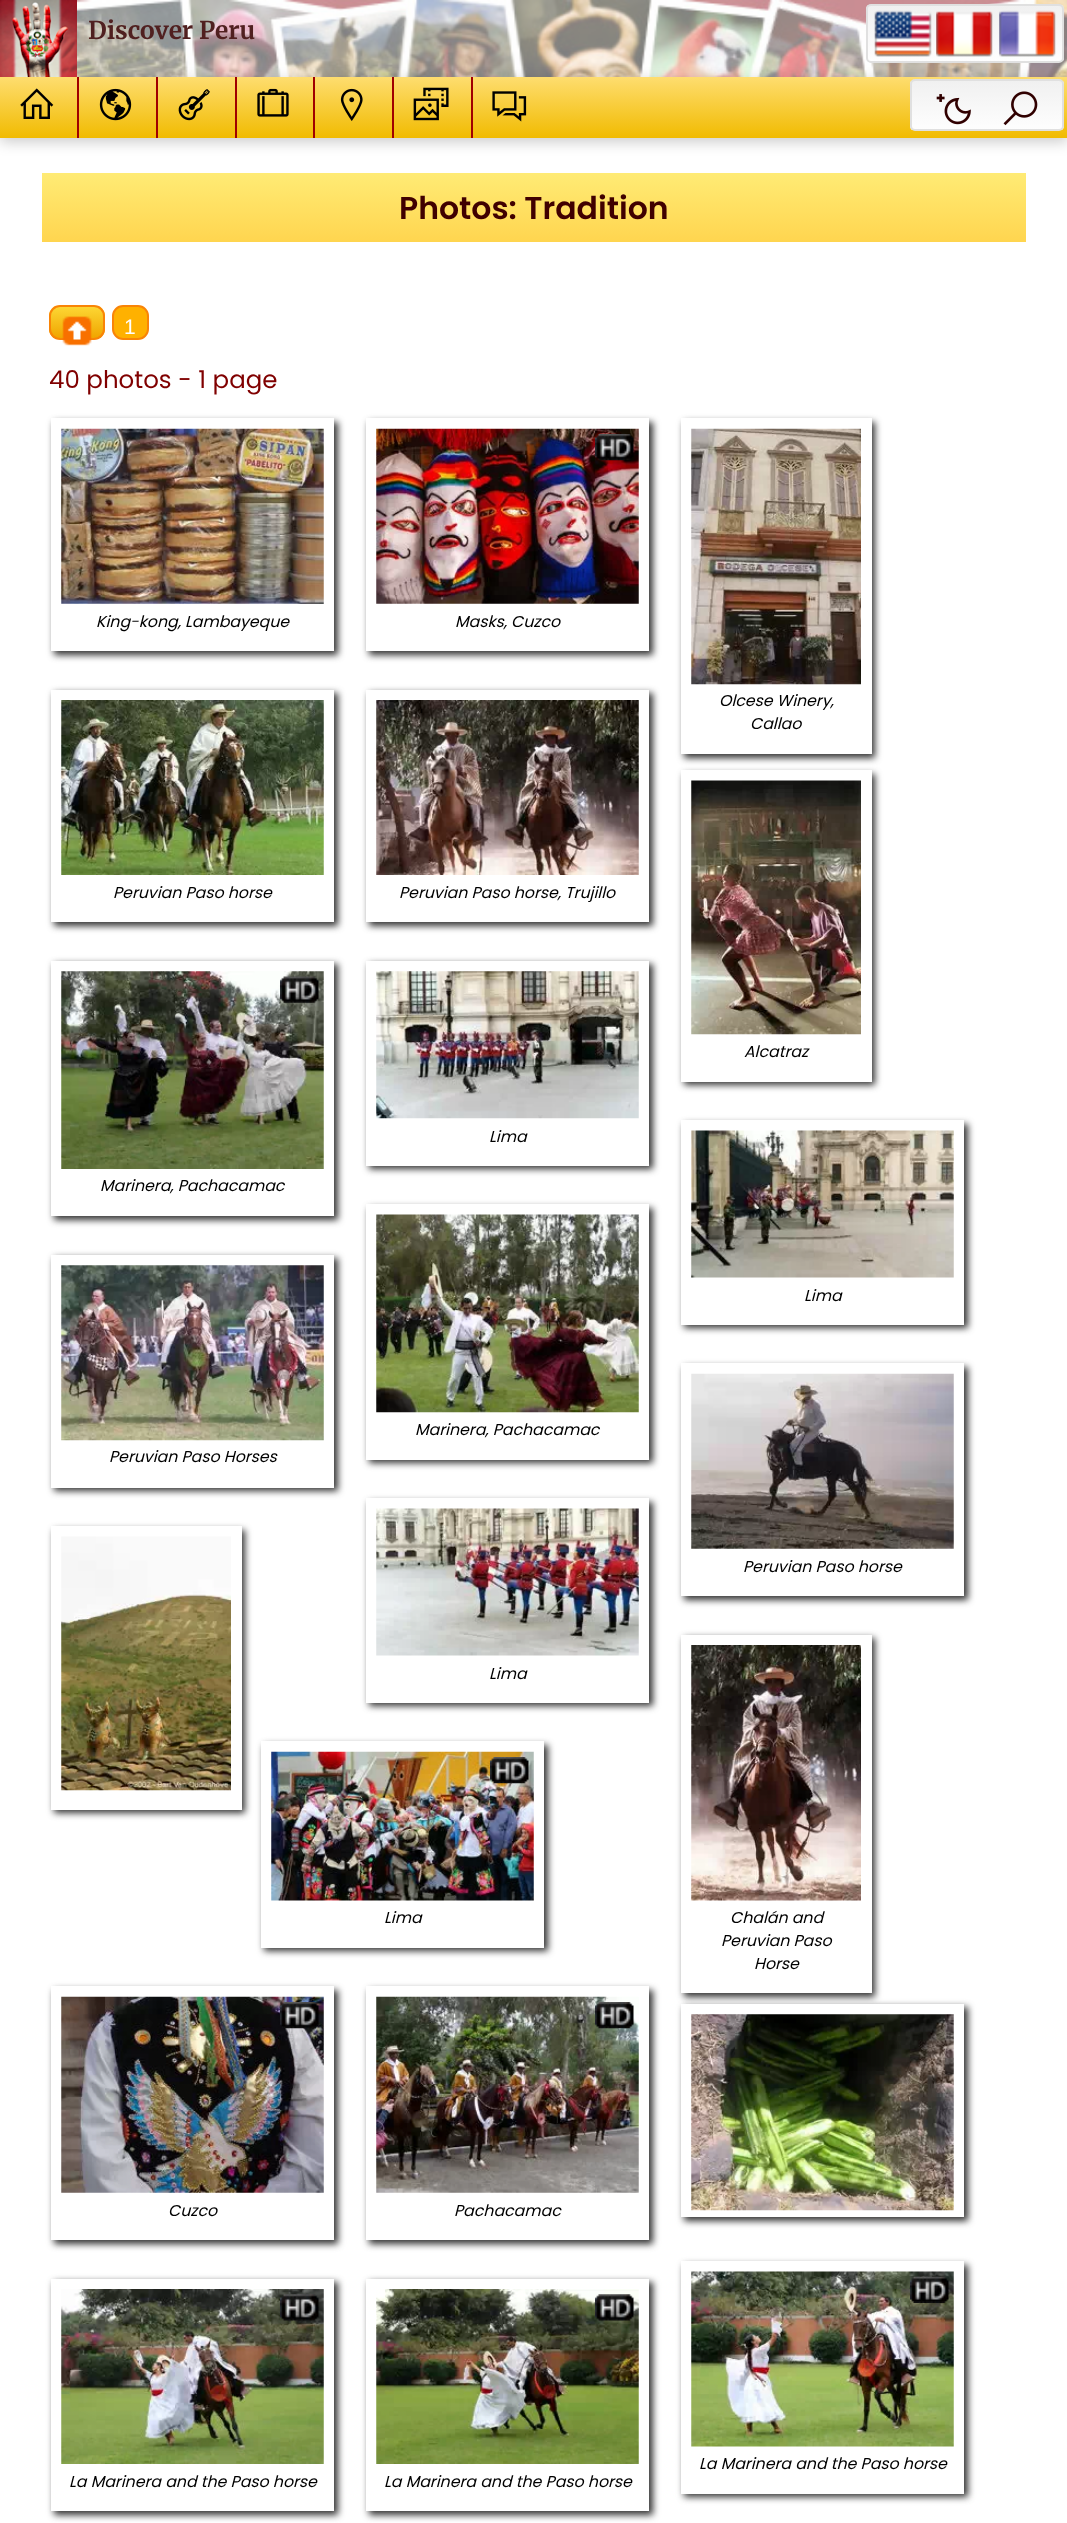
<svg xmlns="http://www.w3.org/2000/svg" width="1067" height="2523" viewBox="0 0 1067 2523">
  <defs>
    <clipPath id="clip1"><rect x="866" y="4" width="198" height="59" rx="5"/></clipPath>
    <linearGradient id="g1" gradientUnits="userSpaceOnUse" x1="965" y1="5.2" x2="965" y2="61"><stop offset="0" stop-color="#f0f0f0"/><stop offset="1" stop-color="#fefefe"/></linearGradient>
    <linearGradient id="g2" gradientUnits="userSpaceOnUse" x1="534" y1="77" x2="534" y2="138"><stop offset="0" stop-color="#fedd6f"/><stop offset="1" stop-color="#f1bb01"/></linearGradient>
    <clipPath id="clip2"><rect x="910" y="79" width="154" height="52" rx="5"/></clipPath>
    <linearGradient id="g3" gradientUnits="userSpaceOnUse" x1="987" y1="80" x2="987" y2="130"><stop offset="0" stop-color="#f0f0f0"/><stop offset="1" stop-color="#fefefe"/></linearGradient>
    <linearGradient id="g4" gradientUnits="userSpaceOnUse" x1="534" y1="173" x2="534" y2="242"><stop offset="0" stop-color="#ffeb75"/><stop offset="1" stop-color="#ffd54f"/></linearGradient>
    <clipPath id="clip3"><rect x="49" y="305" width="56" height="35" rx="11"/></clipPath>
    <linearGradient id="g5" gradientUnits="userSpaceOnUse" x1="77" y1="306" x2="77" y2="338"><stop offset="0" stop-color="#fdd835"/><stop offset="1" stop-color="#f0a500"/></linearGradient>
    <clipPath id="clip4"><path d="M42 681H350V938H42ZM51 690H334V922H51Z" clip-rule="evenodd"/></clipPath>
    <clipPath id="clip5"><path d="M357 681H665V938H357ZM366 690H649V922H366Z" clip-rule="evenodd"/></clipPath>
    <clipPath id="clip6"><path d="M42 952H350V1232H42ZM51 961H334V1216H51Z" clip-rule="evenodd"/></clipPath>
    <clipPath id="clip7"><path d="M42 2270H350V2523H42ZM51 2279H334V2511H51Z" clip-rule="evenodd"/></clipPath>
    <clipPath id="clip8"><path d="M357 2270H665V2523H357ZM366 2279H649V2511H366Z" clip-rule="evenodd"/></clipPath>
  </defs>
  <rect width="100%" height="100%" fill="#fff"/>
  <image x="77" y="0" width="990" height="77" href="img/2.png"/>
  <path d="M0 81h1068v61H0z" fill="#00000033" filter="blur(7px)"/>
  <image x="0" y="0" width="77" height="77" href="img/1.png"/>
  <g clip-path="url(#clip1)">
    <path d="M866 5h198v56H866z" fill="url(#g1)"/>
  </g>
  <rect x="867" y="5" width="196" height="57" rx="4" fill="none" stroke="#e0e0e0" stroke-width="2"/>
  <image x="874" y="10" width="58" height="47" href="img/3.png"/>
  <image x="936" y="11" width="57" height="46" href="img/4.png"/>
  <image x="999" y="10" width="57" height="47" href="img/5.png"/>
  <path d="M0 77h1067v61H0z" fill="url(#g2)"/>
  <image x="20" y="88" width="34" height="31" href="img/6.png"/>
  <path d="M77 77h2v61H77z" fill="#a00000"/>
  <image x="99" y="88" width="33" height="33" href="img/7.png"/>
  <path d="M156 77h2v61H156z" fill="#a00000"/>
  <image x="178" y="89" width="32" height="32" href="img/8.png"/>
  <path d="M235 77h2v61H235z" fill="#a00000"/>
  <image x="257" y="88" width="32" height="29" href="img/9.png"/>
  <path d="M313 77h2v61H313z" fill="#a00000"/>
  <image x="340" y="88" width="23" height="33" href="img/10.png"/>
  <path d="M392 77h2v61H392z" fill="#a00000"/>
  <image x="413" y="87" width="36" height="34" href="img/11.png"/>
  <path d="M471 77h2v61H471z" fill="#a00000"/>
  <image x="492" y="91" width="35" height="31" href="img/12.png"/>
  <g clip-path="url(#clip2)">
    <path d="M910 81h154v49H910z" fill="url(#g3)"/>
  </g>
  <rect x="911" y="80" width="152" height="50" rx="4" fill="none" stroke="#e0e0e0" stroke-width="2"/>
  <image x="936" y="94" width="35" height="31" href="img/13.png"/>
  <image x="1003" y="91" width="35" height="35" href="img/14.png"/>
  <path d="M42 173h984v69H42z" fill="url(#g4)"/>
  <g clip-path="url(#clip3)">
    <path d="M49 306h56v32H49z" fill="url(#g5)"/>
  </g>
  <rect x="50" y="306" width="54" height="33" rx="10" fill="none" stroke="#f98407" stroke-width="2"/>
  <image x="62" y="316" width="30" height="30" href="img/15.png"/>
  <rect x="113" y="306" width="35" height="33" rx="10" fill="#ffb100" stroke="#f98407" stroke-width="2"/>
  <path d="M54 422h284v233H54z" fill="#333" filter="blur(3.5px)"/>
  <path d="M51 418h283v233H51z" fill="#fff"/>
  <image x="61" y="428" width="263" height="176" href="img/16.png"/>
  <path d="M369 422h284v233H369z" fill="#333" filter="blur(3.5px)"/>
  <path d="M366 418h283v233H366z" fill="#fff"/>
  <image x="376" y="428" width="263" height="176" href="img/17.png"/>
  <image x="595" y="434" width="39" height="27" href="img/18.png"/>
  <path d="M684 422h191v336H684z" fill="#333" filter="blur(3.5px)"/>
  <path d="M681 418h191v336H681z" fill="#fff"/>
  <image x="691" y="428" width="170" height="257" href="img/19.png"/>
  <g clip-path="url(#clip4)">
    <path d="M54 693h284v233H54z" fill="#333" filter="blur(3.5px)"/>
  </g>
  <image x="61" y="700" width="263" height="175" href="img/20.png"/>
  <g clip-path="url(#clip5)">
    <path d="M369 693h284v233H369z" fill="#333" filter="blur(3.5px)"/>
  </g>
  <image x="376" y="700" width="263" height="175" href="img/21.png"/>
  <path d="M684 774h191v311H684z" fill="#333" filter="blur(3.5px)"/>
  <path d="M681 770h191v312H681z" fill="#fff"/>
  <image x="691" y="780" width="170" height="255" href="img/22.png"/>
  <path d="M369 964h284v205H369z" fill="#333" filter="blur(3.5px)"/>
  <path d="M366 961h283v205H366z" fill="#fff"/>
  <image x="376" y="971" width="263" height="148" href="img/23.png"/>
  <g clip-path="url(#clip6)">
    <path d="M54 964h284v256H54z" fill="#333" filter="blur(3.5px)"/>
  </g>
  <image x="61" y="971" width="263" height="198" href="img/24.png"/>
  <image x="280" y="976" width="39" height="27" href="img/25.png"/>
  <path d="M684 1124h284v204H684z" fill="#333" filter="blur(3.5px)"/>
  <path d="M681 1120h283v205H681z" fill="#fff"/>
  <image x="691" y="1130" width="263" height="148" href="img/26.png"/>
  <path d="M369 1208h284v255H369z" fill="#333" filter="blur(3.5px)"/>
  <path d="M366 1204h283v256H366z" fill="#fff"/>
  <image x="376" y="1214" width="263" height="199" href="img/27.png"/>
  <path d="M54 1258h284v233H54z" fill="#333" filter="blur(3.5px)"/>
  <path d="M51 1255h283v233H51z" fill="#fff"/>
  <image x="61" y="1265" width="263" height="176" href="img/28.png"/>
  <path d="M54 1530h191v283H54z" fill="#333" filter="blur(3.5px)"/>
  <path d="M51 1526h191v284H51z" fill="#fff"/>
  <image x="61" y="1536" width="170" height="255" href="img/29.png"/>
  <path d="M684 1367h284v233H684z" fill="#333" filter="blur(3.5px)"/>
  <path d="M681 1363h283v233H681z" fill="#fff"/>
  <image x="691" y="1373" width="263" height="176" href="img/30.png"/>
  <path d="M369 1502h284v204H369z" fill="#333" filter="blur(3.5px)"/>
  <path d="M366 1498h283v205H366z" fill="#fff"/>
  <image x="376" y="1508" width="263" height="148" href="img/31.png"/>
  <path d="M264 1745h284v206H264z" fill="#333" filter="blur(3.5px)"/>
  <path d="M261 1741h283v207H261z" fill="#fff"/>
  <image x="271" y="1751" width="263" height="150" href="img/32.png"/>
  <image x="490" y="1757" width="39" height="27" href="img/33.png"/>
  <path d="M684 1638h191v359H684z" fill="#333" filter="blur(3.5px)"/>
  <path d="M681 1635h191v358H681z" fill="#fff"/>
  <image x="691" y="1645" width="170" height="256" href="img/34.png"/>
  <path d="M54 1990h284v254H54z" fill="#333" filter="blur(3.5px)"/>
  <path d="M51 1986h283v254H51z" fill="#fff"/>
  <image x="61" y="1996" width="263" height="197" href="img/35.png"/>
  <image x="280" y="2002" width="39" height="27" href="img/36.png"/>
  <path d="M369 1990h284v254H369z" fill="#333" filter="blur(3.5px)"/>
  <path d="M366 1986h283v254H366z" fill="#fff"/>
  <image x="376" y="1996" width="263" height="197" href="img/37.png"/>
  <image x="595" y="2002" width="39" height="27" href="img/38.png"/>
  <path d="M684 2007h284v214H684z" fill="#333" filter="blur(3.5px)"/>
  <path d="M681 2004h283v213H681z" fill="#fff"/>
  <image x="691" y="2014" width="263" height="197" href="img/39.png"/>
  <path d="M684 2265h284v232H684z" fill="#333" filter="blur(3.5px)"/>
  <path d="M681 2261h283v233H681z" fill="#fff"/>
  <image x="691" y="2271" width="263" height="176" href="img/40.png"/>
  <image x="910" y="2276" width="39" height="27" href="img/41.png"/>
  <g clip-path="url(#clip7)">
    <path d="M54 2282h284v233H54z" fill="#333" filter="blur(3.5px)"/>
  </g>
  <image x="61" y="2289" width="263" height="175" href="img/42.png"/>
  <image x="280" y="2294" width="39" height="27" href="img/43.png"/>
  <g clip-path="url(#clip8)">
    <path d="M369 2282h284v233H369z" fill="#333" filter="blur(3.5px)"/>
  </g>
  <image x="376" y="2289" width="263" height="175" href="img/44.png"/>
  <image x="595" y="2294" width="39" height="27" href="img/45.png"/>
  <text x="88" y="39" font-family="Merriweather" font-size="24.5" font-weight="bold" fill="#502020">Discover Peru</text>
  <text x="399" y="219" font-family="Poppins" font-size="31.5" font-weight="600" fill="#400000">Photos: Tradition</text>
  <text x="124" y="334" font-family="Liberation Sans" font-size="21" fill="#fff">1</text>
  <text x="49" y="388" font-family="Poppins" font-size="24.5" fill="#800000">40 photos - 1 page</text>
  <g font-family="Poppins" font-size="15.75" font-style="italic" fill="#000">
    <text x="96" y="627">King-kong, Lambayeque</text>
    <text x="455" y="627">Masks, Cuzco</text>
    <text x="719" y="706">Olcese Winery,</text>
    <text x="750" y="729">Callao</text>
    <text x="113" y="898">Peruvian Paso horse</text>
    <text x="399" y="898">Peruvian Paso horse, Trujillo</text>
    <text x="744" y="1057">Alcatraz</text>
    <text x="489" y="1142">Lima</text>
    <text x="100" y="1191">Marinera, Pachacamac</text>
    <text x="804" y="1301">Lima</text>
    <text x="415" y="1435">Marinera, Pachacamac</text>
    <text x="109" y="1462">Peruvian Paso Horses</text>
    <text x="743" y="1572">Peruvian Paso horse</text>
    <text x="489" y="1679">Lima</text>
    <text x="384" y="1923">Lima</text>
    <text x="730" y="1923">Chalán and</text>
    <text x="721" y="1946">Peruvian Paso</text>
    <text x="754" y="1969">Horse</text>
    <text x="168" y="2216">Cuzco</text>
    <text x="454" y="2216">Pachacamac</text>
    <text x="699" y="2469">La Marinera and the Paso horse</text>
    <text x="69" y="2487">La Marinera and the Paso horse</text>
    <text x="384" y="2487">La Marinera and the Paso horse</text>
  </g>
</svg>
